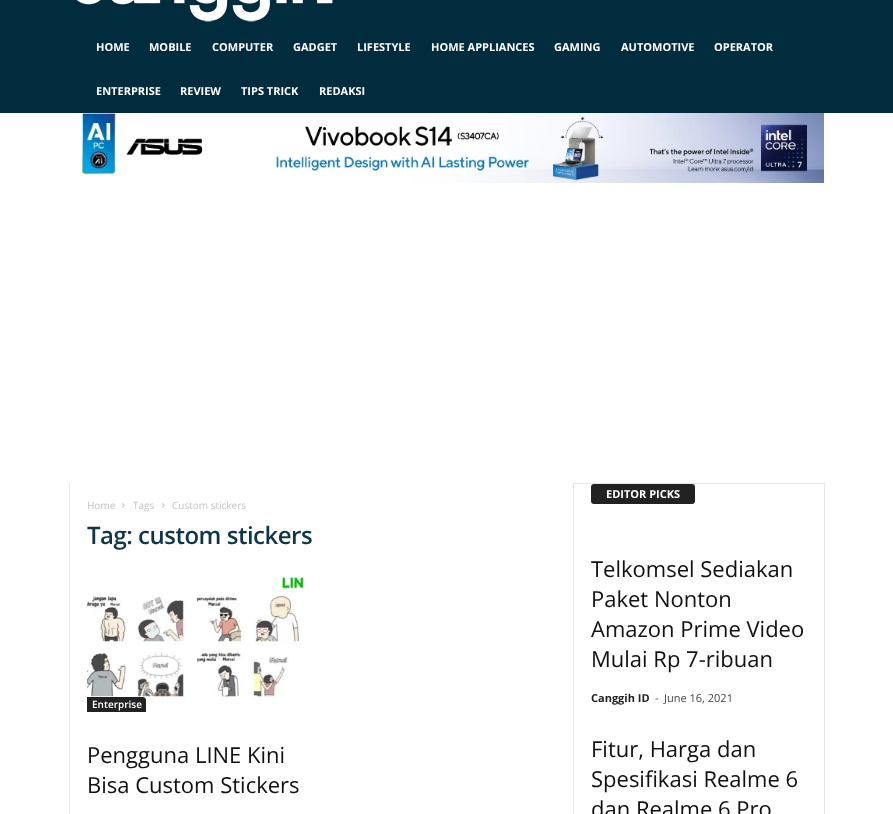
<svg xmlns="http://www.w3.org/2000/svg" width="893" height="814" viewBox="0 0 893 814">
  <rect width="100%" height="100%" fill="#fff"/>
  <path d="M0 0h893v113H0z" fill="#002c3e"/>
  <image x="77" y="0" width="256" height="22" href="img/1.png"/>
  <image x="81" y="113" width="743" height="70" href="img/2.png"/>
  <path d="M69 483h1v331H69z" fill="#e6e6e6"/>
  <image x="122" y="503" width="3" height="5" href="img/3.png"/>
  <image x="162" y="503" width="3" height="5" href="img/3.png"/>
  <image x="87" y="576" width="217" height="123" href="img/4.png"/>
  <path d="M87 697H143C144.5 697 146 698.5 146 700V712H87Z" fill="#222"/>
  <path d="M573 483h1v331H573z" fill="#e6e6e6"/>
  <path d="M824 483h1v331H824z" fill="#e6e6e6"/>
  <path d="M574 483h251v1H574z" fill="#e6e6e6"/>
  <rect x="591" y="484" width="104" height="20" rx="3" fill="#222"/>
  <g font-family="Open Sans" font-size="11" font-weight="bold" fill="#fff">
    <text x="96" y="51">HOME</text>
    <text x="149" y="51">MOBILE</text>
    <text x="212" y="51">COMPUTER</text>
    <text x="293" y="51">GADGET</text>
    <text x="357" y="51">LIFESTYLE</text>
    <text x="431" y="51">HOME APPLIANCES</text>
    <text x="554" y="51">GAMING</text>
    <text x="621" y="51">AUTOMOTIVE</text>
    <text x="714" y="51">OPERATOR</text>
    <text x="96" y="95">ENTERPRISE</text>
    <text x="180" y="95">REVIEW</text>
    <text x="241" y="95">TIPS TRICK</text>
    <text x="319" y="95">REDAKSI</text>
  </g>
  <g font-family="Open Sans" font-size="10" fill="#c3c3c3">
    <text x="87" y="509">Home</text>
    <text x="133" y="509">Tags</text>
    <text x="172" y="509">Custom stickers</text>
  </g>
  <text x="87" y="544" font-family="Open Sans" font-size="24" font-weight="600" letter-spacing="-0.5" fill="#0e3746">Tag: custom stickers</text>
  <text x="92" y="708" font-family="Open Sans" font-size="10" font-weight="600" fill="#fff">Enterprise</text>
  <g font-family="Open Sans" font-size="22" fill="#111">
    <text x="87" y="763">Pengguna LINE Kini</text>
    <text x="87" y="793">Bisa Custom Stickers</text>
  </g>
  <text x="606" y="498" font-family="Open Sans" font-size="11" font-weight="bold" fill="#fff">EDITOR PICKS</text>
  <g font-family="Open Sans" font-size="22" fill="#111">
    <text x="591" y="577">Telkomsel Sediakan</text>
    <text x="591" y="607">Paket Nonton</text>
    <text x="591" y="637">Amazon Prime Video</text>
    <text x="591" y="667">Mulai Rp 7-ribuan</text>
  </g>
  <text x="591" y="702" font-family="Open Sans" font-size="11" font-weight="bold" fill="#222">Canggih ID</text>
  <g font-family="Open Sans" font-size="11" fill="#444">
    <text x="655" y="702">-</text>
    <text x="664" y="702">June 16, 2021</text>
  </g>
  <g font-family="Open Sans" font-size="22" fill="#111">
    <text x="591" y="757">Fitur, Harga dan</text>
    <text x="591" y="787">Spesifikasi Realme 6</text>
    <text x="591" y="817">dan Realme 6 Pro</text>
  </g>
</svg>
